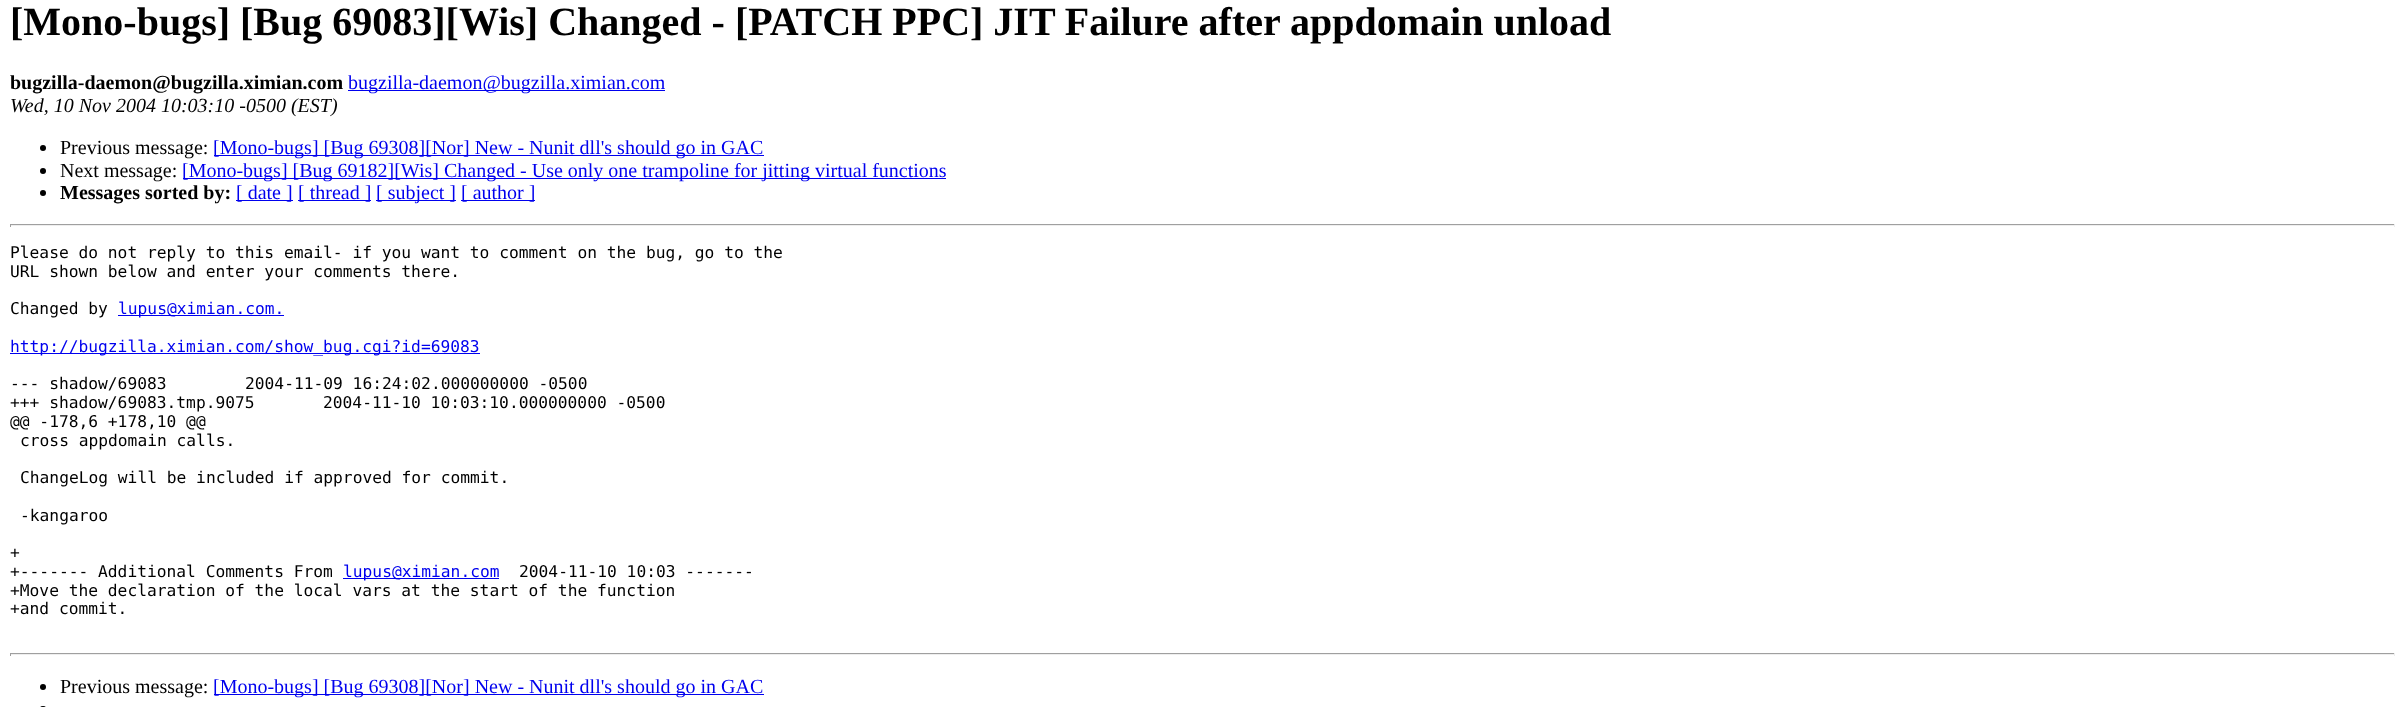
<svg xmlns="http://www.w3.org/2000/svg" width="2405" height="707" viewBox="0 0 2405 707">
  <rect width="100%" height="100%" fill="#fff"/>
  <path d="M348 90h317v1H348z" fill="#00e"/>
  <circle cx="43" cy="148" r="3" fill="#000"/>
  <path d="M214 155h550v1H214z" fill="#00e"/>
  <circle cx="43" cy="171" r="3" fill="#000"/>
  <path d="M183 178h763v1H183z" fill="#00e"/>
  <circle cx="43" cy="193" r="3" fill="#000"/>
  <path d="M236 200h57v1H236z" fill="#00e"/>
  <path d="M298 200h73v1H298z" fill="#00e"/>
  <path d="M376 200h80v1H376z" fill="#00e"/>
  <path d="M461 200h74v1H461z" fill="#00e"/>
  <path d="M10 224h2385v1H10z" fill="#9f9f9f"/>
  <path d="M2394 224h1v3H2394z" fill="#eee"/>
  <path d="M10 225h2385v1H10z" fill="#eee"/>
  <path d="M10 224h1v3H10z" fill="#9f9f9f"/>
  <path d="M118 315h166v1H118z" fill="#00e"/>
  <path d="M10 353h470v1H10z" fill="#00e"/>
  <path d="M343 578h156v1H343z" fill="#00e"/>
  <path d="M10 653h2385v1H10z" fill="#9f9f9f"/>
  <path d="M2394 653h1v3H2394z" fill="#eee"/>
  <path d="M10 654h2385v1H10z" fill="#eee"/>
  <path d="M10 653h1v3H10z" fill="#9f9f9f"/>
  <circle cx="43" cy="687" r="3" fill="#000"/>
  <path d="M214 694h550v1H214z" fill="#00e"/>
  <rect x="40" y="706" width="6" height="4" rx="3" fill="#000"/>
  <text x="10" y="35" font-family="Liberation Serif" font-size="40" font-weight="bold" fill="#000">[Mono-bugs] [Bug 69083][Wis] Changed - [PATCH PPC] JIT Failure after appdomain unload</text>
  <text x="10" y="89" font-family="Liberation Serif" font-size="20" font-weight="bold" fill="#000">bugzilla-daemon@bugzilla.ximian.com</text>
  <text x="348" y="89" font-family="Liberation Serif" font-size="20" fill="#00e">bugzilla-daemon@bugzilla.ximian.com</text>
  <text x="10" y="112" font-family="Liberation Serif" font-size="20" font-style="italic" fill="#000">Wed, 10 Nov 2004 10:03:10 -0500 (EST)</text>
  <text x="60" y="154" font-family="Liberation Serif" font-size="20" fill="#000">Previous message:</text>
  <text x="213" y="154" font-family="Liberation Serif" font-size="20" fill="#00e">[Mono-bugs] [Bug 69308][Nor] New - Nunit dll's should go in GAC</text>
  <text x="60" y="177" font-family="Liberation Serif" font-size="20" fill="#000">Next message:</text>
  <text x="182" y="177" font-family="Liberation Serif" font-size="20" fill="#00e">[Mono-bugs] [Bug 69182][Wis] Changed - Use only one trampoline for jitting virtual functions</text>
  <text x="60" y="199" font-family="Liberation Serif" font-size="20" font-weight="bold" fill="#000">Messages sorted by:</text>
  <g font-family="Liberation Serif" font-size="20" fill="#00e">
    <text x="236" y="199">[ date ]</text>
    <text x="298" y="199">[ thread ]</text>
    <text x="376" y="199">[ subject ]</text>
    <text x="461" y="199">[ author ]</text>
  </g>
  <g font-family="DejaVu Sans Mono" font-size="16.25" fill="#000">
    <text x="10" y="258">Please do not reply to this email- if you want to comment on the bug, go to the</text>
    <text x="10" y="277">URL shown below and enter your comments there.</text>
    <text x="10" y="314">Changed by</text>
  </g>
  <g font-family="DejaVu Sans Mono" font-size="16.25" fill="#00e">
    <text x="118" y="314">lupus@ximian.com.</text>
    <text x="10" y="352">http://bugzilla.ximian.com/show_bug.cgi?id=69083</text>
  </g>
  <g font-family="DejaVu Sans Mono" font-size="16.25" fill="#000">
    <text x="10" y="389">--- shadow/69083</text>
    <text x="245" y="389">2004-11-09 16:24:02.000000000 -0500</text>
    <text x="10" y="408">+++ shadow/69083.tmp.9075</text>
    <text x="323" y="408">2004-11-10 10:03:10.000000000 -0500</text>
    <text x="10" y="427">@@ -178,6 +178,10 @@</text>
    <text x="20" y="446">cross appdomain calls.</text>
    <text x="20" y="483">ChangeLog will be included if approved for commit.</text>
    <text x="20" y="521">-kangaroo</text>
    <text x="10" y="558">+</text>
    <text x="10" y="577">+------- Additional Comments From</text>
  </g>
  <text x="343" y="577" font-family="DejaVu Sans Mono" font-size="16.25" fill="#00e">lupus@ximian.com</text>
  <g font-family="DejaVu Sans Mono" font-size="16.25" fill="#000">
    <text x="519" y="577">2004-11-10 10:03 -------</text>
    <text x="10" y="596">+Move the declaration of the local vars at the start of the function</text>
    <text x="10" y="614">+and commit.</text>
  </g>
  <text x="60" y="693" font-family="Liberation Serif" font-size="20" fill="#000">Previous message:</text>
  <text x="213" y="693" font-family="Liberation Serif" font-size="20" fill="#00e">[Mono-bugs] [Bug 69308][Nor] New - Nunit dll's should go in GAC</text>
</svg>
